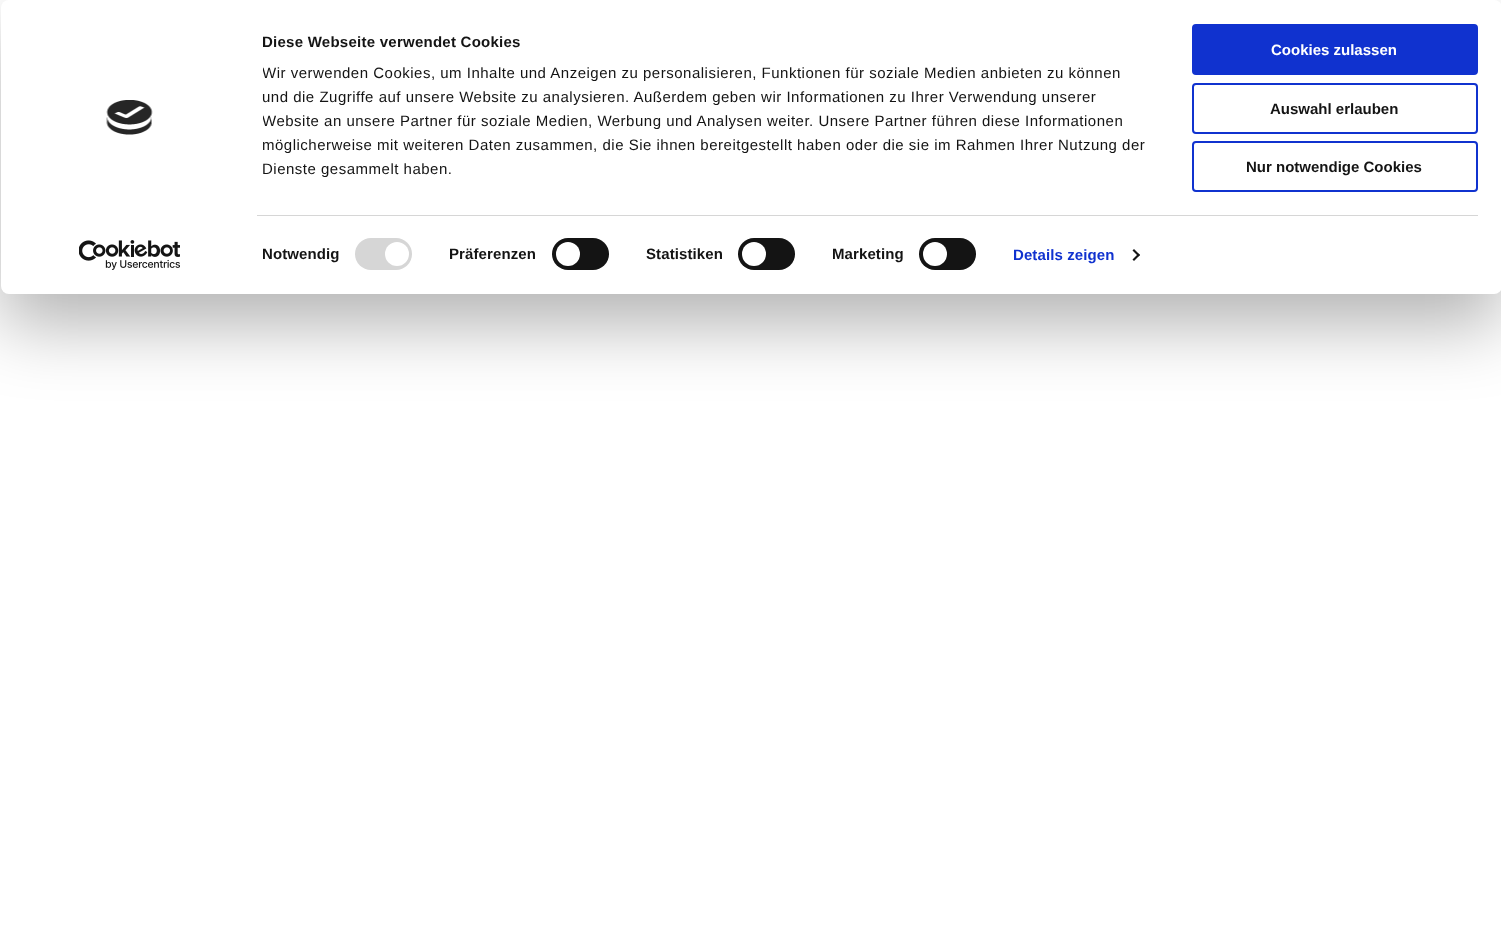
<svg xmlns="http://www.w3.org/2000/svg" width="1501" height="929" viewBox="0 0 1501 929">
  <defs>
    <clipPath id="clip1"><path d="M263 30h900v156H263z"/></clipPath>
  </defs>
  <rect width="100%" height="100%" fill="#fff"/>
  <rect x="1" y="30" width="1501" height="294" rx="8" fill="#0000004d" filter="blur(35px)"/>
  <rect x="1" width="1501" height="294" rx="8" fill="#fff"/>
  <image x="106" y="100" width="47" height="35" href="img/1.png"/>
  <image x="79" y="240" width="101" height="30" href="img/2.png"/>
  <path d="M257 215h1221v1H257z" fill="#d6d6d6"/>
  <rect x="355" y="238" width="57" height="32" rx="16" fill="#d6d6d6"/>
  <circle cx="397" cy="254" r="12" fill="#fff"/>
  <rect x="552" y="238" width="57" height="32" rx="16" fill="#141414"/>
  <circle cx="568" cy="254" r="12" fill="#fff"/>
  <rect x="738" y="238" width="57" height="32" rx="16" fill="#141414"/>
  <circle cx="754" cy="254" r="12" fill="#fff"/>
  <rect x="919" y="238" width="57" height="32" rx="16" fill="#141414"/>
  <circle cx="935" cy="254" r="12" fill="#fff"/>
  <path d="M1134 249L1140 255L1138.5 256.5L1132.5 250.5Z" fill="#141414"/>
  <path d="M1138.5 253.5L1140 255L1134 261L1132.5 259.5Z" fill="#141414"/>
  <rect x="1193" y="25" width="284" height="49" rx="3" fill="#1032cf" stroke="#1032cf" stroke-width="2"/>
  <rect x="1193" y="84" width="284" height="49" rx="3" fill="none" stroke="#1032cf" stroke-width="2"/>
  <rect x="1193" y="142" width="284" height="49" rx="3" fill="none" stroke="#1032cf" stroke-width="2"/>
  <text x="262" y="47" font-family="Liberation Sans" font-size="15" font-weight="bold" letter-spacing="0.25" fill="#141414">Diese Webseite verwendet Cookies</text>
  <g clip-path="url(#clip1)">
    <text x="262" y="78" font-family="Liberation Sans" font-size="15" letter-spacing="0.5" fill="#141414">Wir verwenden Cookies, um Inhalte und Anzeigen zu personalisieren, Funktionen für soziale Medien anbieten zu können</text>
  </g>
  <text x="262" y="102" font-family="Liberation Sans" font-size="15" letter-spacing="0.5" fill="#141414">und die Zugriffe auf unsere Website zu analysieren. Außerdem geben wir Informationen zu Ihrer Verwendung unserer</text>
  <g clip-path="url(#clip1)">
    <text x="262" y="126" font-family="Liberation Sans" font-size="15" letter-spacing="0.5" fill="#141414">Website an unsere Partner für soziale Medien, Werbung und Analysen weiter. Unsere Partner führen diese Informationen</text>
  </g>
  <g font-family="Liberation Sans" font-size="15" letter-spacing="0.5" fill="#141414">
    <text x="262" y="150">möglicherweise mit weiteren Daten zusammen, die Sie ihnen bereitgestellt haben oder die sie im Rahmen Ihrer Nutzung der</text>
    <text x="262" y="174">Dienste gesammelt haben.</text>
  </g>
  <g font-family="Liberation Sans" font-size="15" font-weight="bold" letter-spacing="0.1" fill="#141414">
    <text x="262" y="259">Notwendig</text>
    <text x="449" y="259">Präferenzen</text>
    <text x="646" y="259">Statistiken</text>
    <text x="832" y="259">Marketing</text>
  </g>
  <text x="1013" y="260" font-family="Liberation Sans" font-size="15" font-weight="bold" letter-spacing="0.1" fill="#1032cf">Details zeigen</text>
  <text x="1271" y="55" font-family="Liberation Sans" font-size="15" font-weight="bold" fill="#fff">Cookies zulassen</text>
  <g font-family="Liberation Sans" font-size="15" font-weight="bold" fill="#141414">
    <text x="1270" y="114">Auswahl erlauben</text>
    <text x="1246" y="172">Nur notwendige Cookies</text>
  </g>
</svg>
